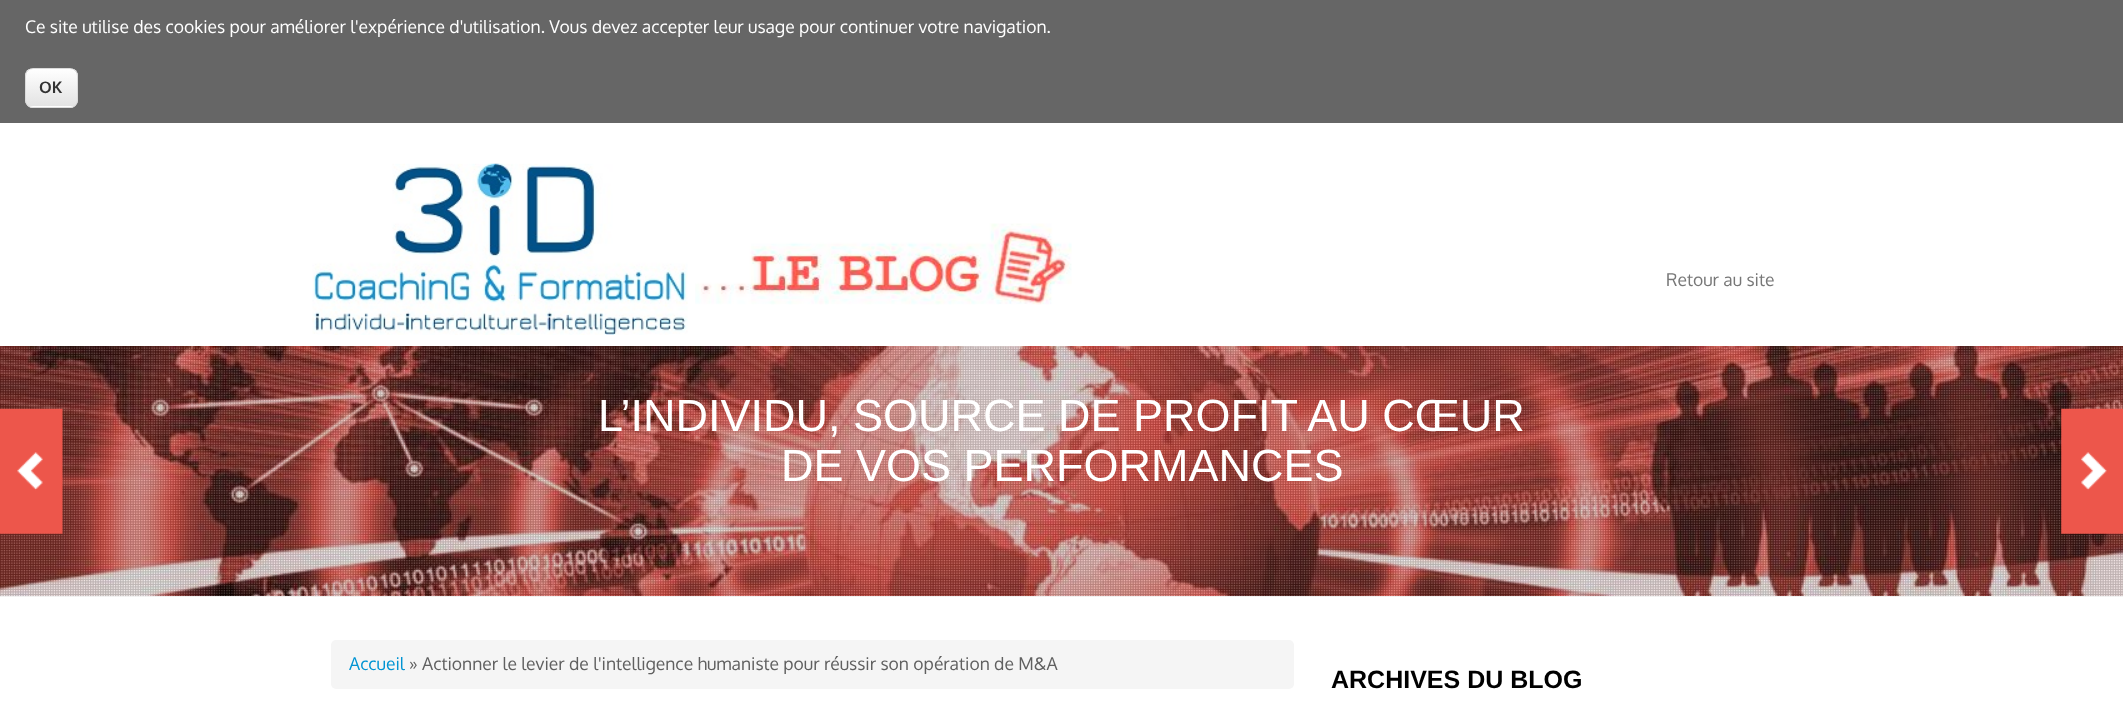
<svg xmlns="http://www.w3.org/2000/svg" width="2123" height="726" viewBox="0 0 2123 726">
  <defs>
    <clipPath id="clip1"><rect x="25" y="68" width="53" height="40" rx="8"/></clipPath>
    <linearGradient id="g1" gradientUnits="userSpaceOnUse" x1="51" y1="69" x2="51" y2="106"><stop offset="0" stop-color="#fff"/><stop offset="1" stop-color="#e3e3e3"/></linearGradient>
    <linearGradient id="g2" gradientUnits="userSpaceOnUse" x1="51" y1="106" x2="51" y2="144"><stop offset="0" stop-color="#fff"/><stop offset="1" stop-color="#e3e3e3"/></linearGradient>
  </defs>
  <rect width="100%" height="100%" fill="#fff"/>
  <path d="M0 0h2123v123H0z" fill="#666"/>
  <g clip-path="url(#clip1)">
    <path d="M25 69h53v37H25z" fill="url(#g1)"/>
    <path d="M25 106h53v2H25z" fill="url(#g2)"/>
  </g>
  <path d="M32 70H70C73 70 76 73 76 76C76 68 70 69 64 69H38C32 69 26 68 26 76C26 73 29 70 32 70Z" fill="#fff"/>
  <rect x="25.5" y="68.5" width="52" height="39" rx="7.5" fill="none" stroke="#dbdbdb"/>
  <image x="312" y="163" width="376" height="172" href="img/1.png"/>
  <image x="695" y="223" width="377" height="82" href="img/2.png"/>
  <image x="0" y="346" width="2123" height="250" href="img/4.png"/>
  <image x="0" y="346" width="2123" height="251" href="img/3.png"/>
  <image x="0" y="408" width="63" height="126" href="img/5.png"/>
  <image x="2061" y="408" width="62" height="126" href="img/6.png"/>
  <rect x="331" y="640" width="963" height="49" rx="5" fill="#f5f5f5"/>
  <text x="25" y="33" font-family="Oxygen" font-size="17.5" fill="#fff">Ce site utilise des cookies pour améliorer l'expérience d'utilisation. Vous devez accepter leur usage pour continuer votre navigation.</text>
  <text x="39" y="93" font-family="Oxygen" font-size="16" font-weight="bold" fill="#333">OK</text>
  <text x="1666" y="286" font-family="Oxygen" font-size="17.5" fill="#777">Retour au site</text>
  <g font-family="Liberation Sans" font-size="45" fill="#fff">
    <text x="598" y="431">L’INDIVIDU, SOURCE DE PROFIT AU CŒUR</text>
    <text x="781" y="481">DE VOS PERFORMANCES</text>
  </g>
  <text x="349" y="670" font-family="Oxygen" font-size="17.5" fill="#0194d3">Accueil</text>
  <text x="409" y="670" font-family="Oxygen" font-size="17.5" fill="#606060">» Actionner le levier de l'intelligence humaniste pour réussir son opération de M&amp;A</text>
  <text x="1331" y="688" font-family="Liberation Sans" font-size="25" font-weight="bold" fill="#000">ARCHIVES DU BLOG</text>
</svg>
